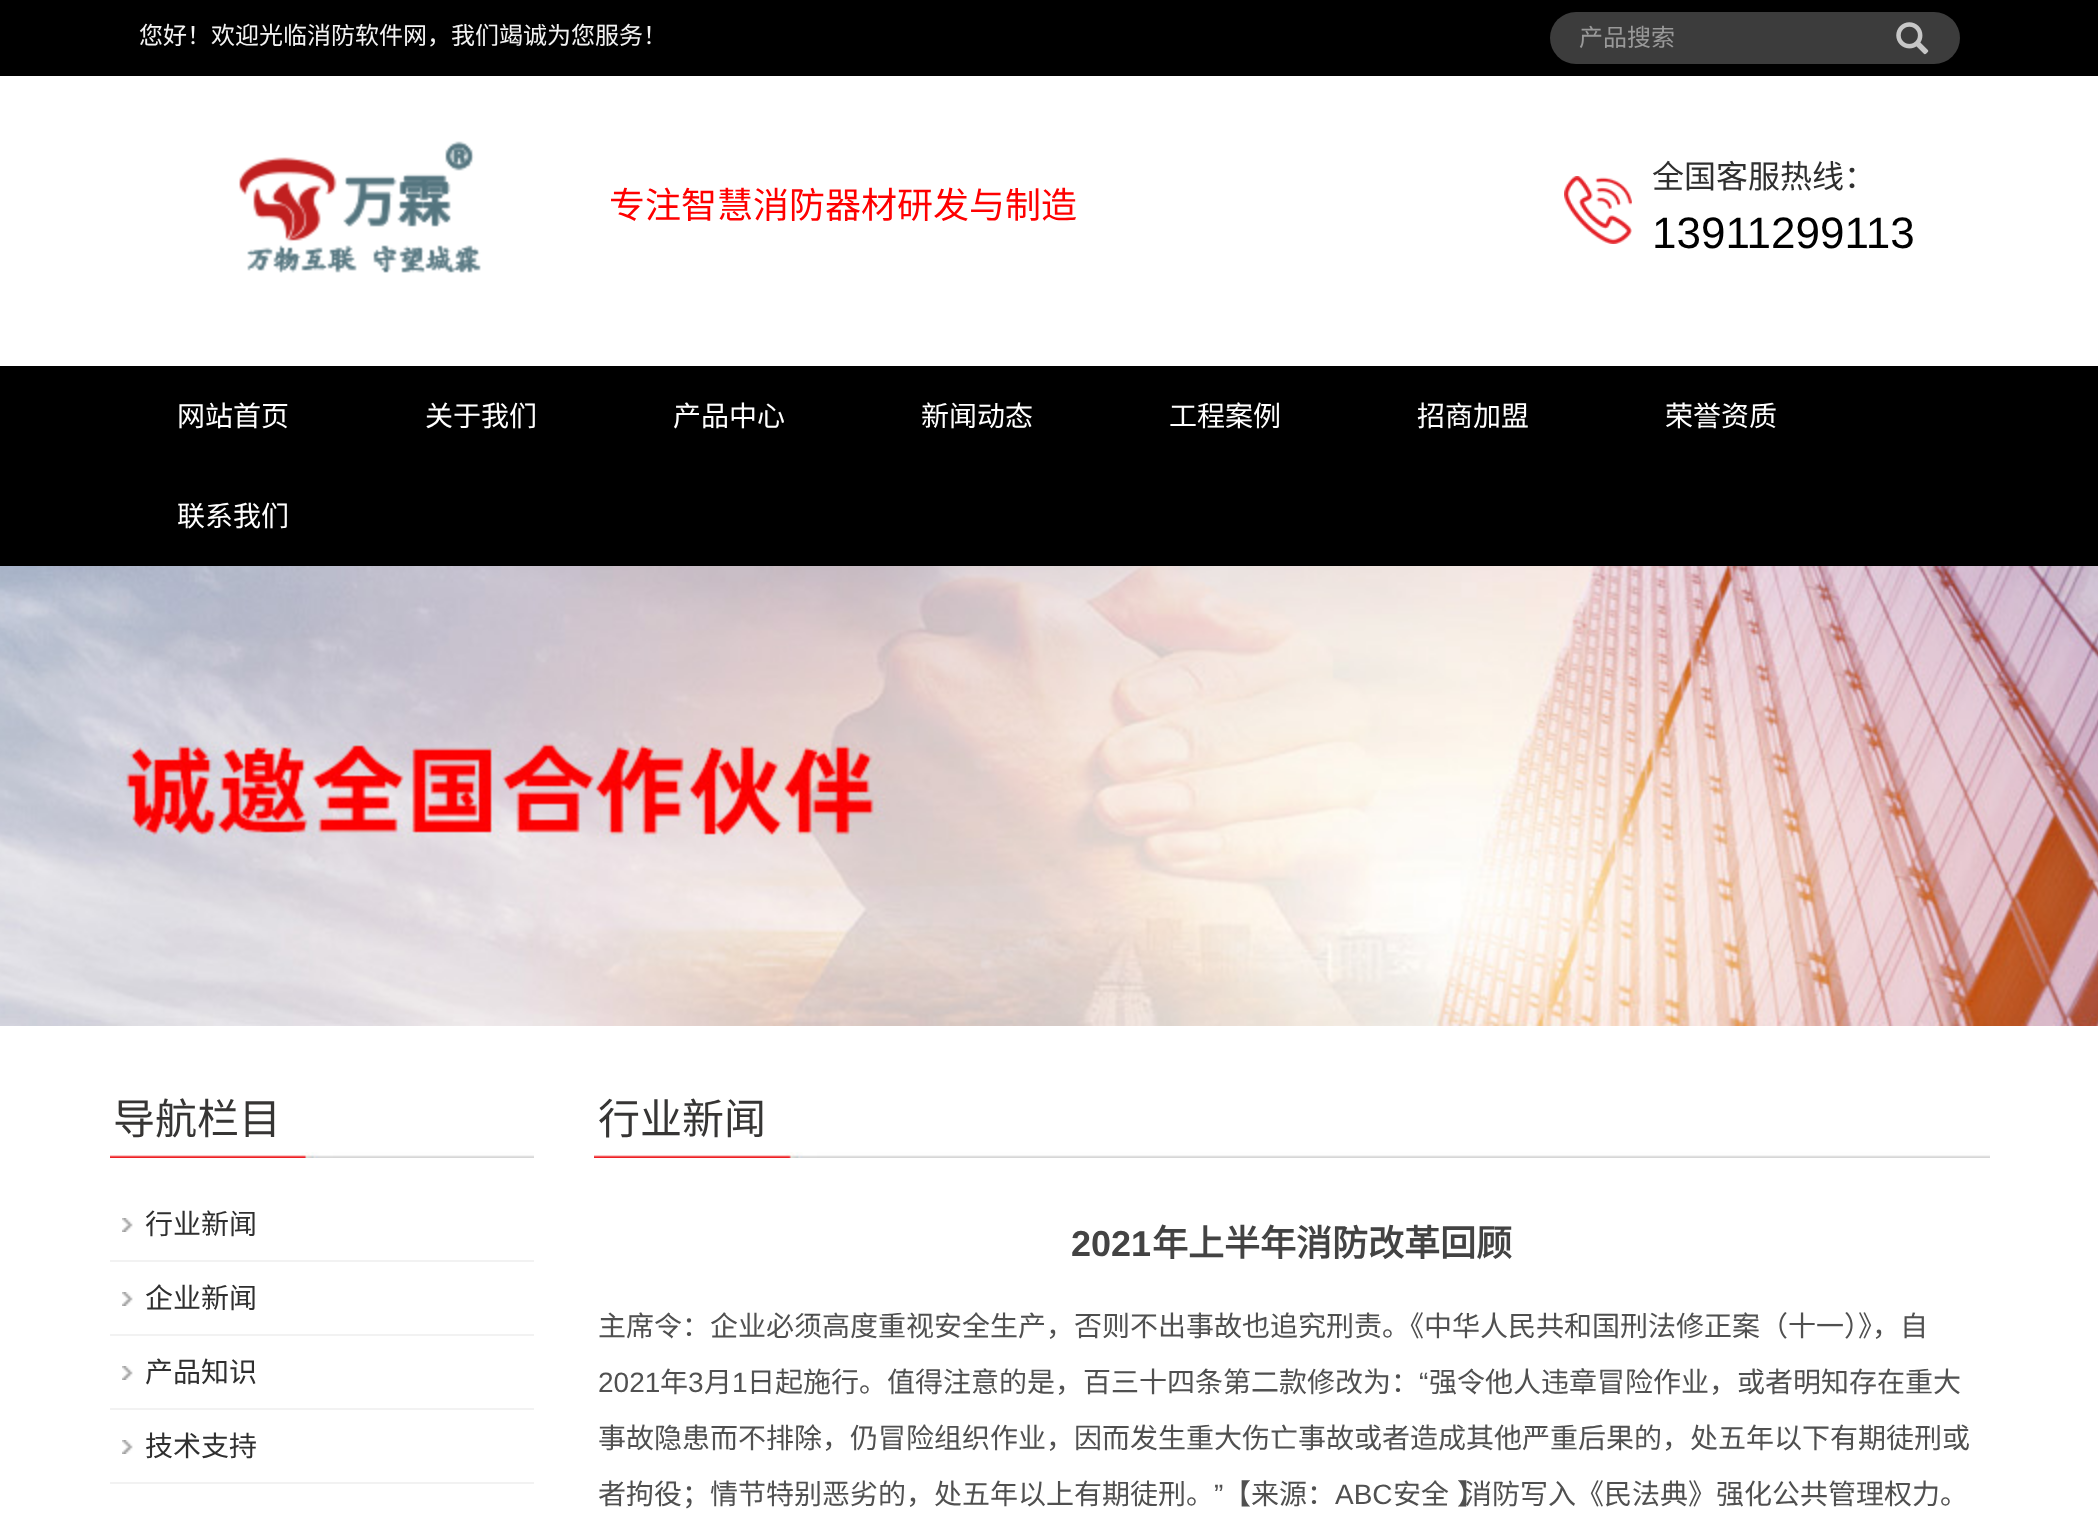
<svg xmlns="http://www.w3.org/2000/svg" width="2098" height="1523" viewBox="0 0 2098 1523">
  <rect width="100%" height="100%" fill="#fff"/>
  <path d="M0 0h2098v76H0z" fill="#000"/>
  <rect x="1550" y="12" width="410" height="52" rx="26" fill="#3c3c3c"/>
  <image x="1896" y="22" width="33" height="33" href="img/1.png"/>
  <image x="239" y="141" width="242" height="132" href="img/2.png"/>
  <image x="1564" y="176" width="68" height="68" href="img/3.png"/>
  <path d="M0 366h2098v200H0z" fill="#000"/>
  <image x="0" y="566" width="2098" height="460" href="img/4.png"/>
  <image x="110" y="1152" width="424" height="6" href="img/5.png"/>
  <image x="122" y="1218" width="11" height="14" href="img/6.png"/>
  <path d="M110 1260h424v2H110z" fill="#f2f2f2"/>
  <image x="122" y="1292" width="11" height="14" href="img/6.png"/>
  <path d="M110 1334h424v2H110z" fill="#f2f2f2"/>
  <image x="122" y="1366" width="11" height="14" href="img/6.png"/>
  <path d="M110 1408h424v2H110z" fill="#f2f2f2"/>
  <image x="122" y="1440" width="11" height="14" href="img/6.png"/>
  <path d="M110 1482h424v2H110z" fill="#f2f2f2"/>
  <image x="594" y="1152" width="1396" height="6" href="img/7.png"/>
  <text x="139" y="44" font-family="Noto Sans CJK SC" font-size="24" fill="#f3f3f3">您好！欢迎光临消防软件网，我们竭诚为您服务！</text>
  <text x="1579" y="46" font-family="Noto Sans CJK SC" font-size="24" fill="#999">产品搜索</text>
  <text x="609" y="218" font-family="Noto Sans CJK SC" font-size="36" fill="#f00">专注智慧消防器材研发与制造</text>
  <text x="1652" y="188" font-family="Noto Sans CJK SC" font-size="32" fill="#2f2f2f">全国客服热线：</text>
  <text x="1652" y="248" font-family="Liberation Sans" font-size="44" fill="#000">13911299113</text>
  <g font-family="Noto Sans CJK SC" font-size="28" fill="#fff">
    <text x="177" y="426">网站首页</text>
    <text x="425" y="426">关于我们</text>
    <text x="673" y="426">产品中心</text>
    <text x="921" y="426">新闻动态</text>
    <text x="1169" y="426">工程案例</text>
    <text x="1417" y="426">招商加盟</text>
    <text x="1665" y="426">荣誉资质</text>
    <text x="177" y="526">联系我们</text>
  </g>
  <text x="113" y="1134" font-family="Noto Sans CJK SC" font-size="42" fill="#363534">导航栏目</text>
  <g font-family="Noto Sans CJK SC" font-size="28" fill="#2f2f2f">
    <text x="145" y="1234">行业新闻</text>
    <text x="145" y="1308">企业新闻</text>
    <text x="145" y="1382">产品知识</text>
    <text x="145" y="1456">技术支持</text>
  </g>
  <text x="598" y="1134" font-family="Noto Sans CJK SC" font-size="42" fill="#363534">行业新闻</text>
  <text x="1071" y="1256" font-family="Liberation Sans" font-size="36" font-weight="bold" fill="#434343">2021</text>
  <text x="1152" y="1256" font-family="Noto Sans CJK SC" font-size="36" font-weight="bold" fill="#434343">年上半年消防改革回顾</text>
  <text x="598" y="1336" font-family="Noto Sans CJK SC" font-size="28" fill="#505050">主席令：企业必须高度重视安全生产，否则不出事故也追究刑责。《中华人民共和国刑法修正案（十一）》，自</text>
  <text x="598" y="1392" font-family="Liberation Sans" font-size="28" fill="#505050">2021</text>
  <text x="660" y="1392" font-family="Noto Sans CJK SC" font-size="28" fill="#505050">年</text>
  <text x="688" y="1392" font-family="Liberation Sans" font-size="28" fill="#505050">3</text>
  <text x="704" y="1392" font-family="Noto Sans CJK SC" font-size="28" fill="#505050">月</text>
  <text x="732" y="1392" font-family="Liberation Sans" font-size="28" fill="#505050">1</text>
  <text x="747" y="1392" font-family="Noto Sans CJK SC" font-size="28" fill="#505050">日起施行。值得注意的是，百三十四条第二款修改为：</text>
  <text x="1419" y="1392" font-family="Liberation Sans" font-size="28" fill="#505050">“</text>
  <g font-family="Noto Sans CJK SC" font-size="28" fill="#505050">
    <text x="1429" y="1392">强令他人违章冒险作业，或者明知存在重大</text>
    <text x="598" y="1448">事故隐患而不排除，仍冒险组织作业，因而发生重大伤亡事故或者造成其他严重后果的，处五年以下有期徒刑或</text>
    <text x="598" y="1504">者拘役；情节特别恶劣的，处五年以上有期徒刑。</text>
  </g>
  <text x="1214" y="1504" font-family="Liberation Sans" font-size="28" fill="#505050">”</text>
  <text x="1223" y="1504" font-family="Noto Sans CJK SC" font-size="28" fill="#505050">【来源：</text>
  <text x="1335" y="1504" font-family="Liberation Sans" font-size="28" fill="#505050">ABC</text>
  <g font-family="Noto Sans CJK SC" font-size="28" fill="#505050">
    <text x="1393" y="1504">安全</text>
    <text x="1457" y="1504">】</text>
    <text x="1464" y="1504">消防写入《民法典》强化公共管理权力。</text>
  </g>
</svg>
